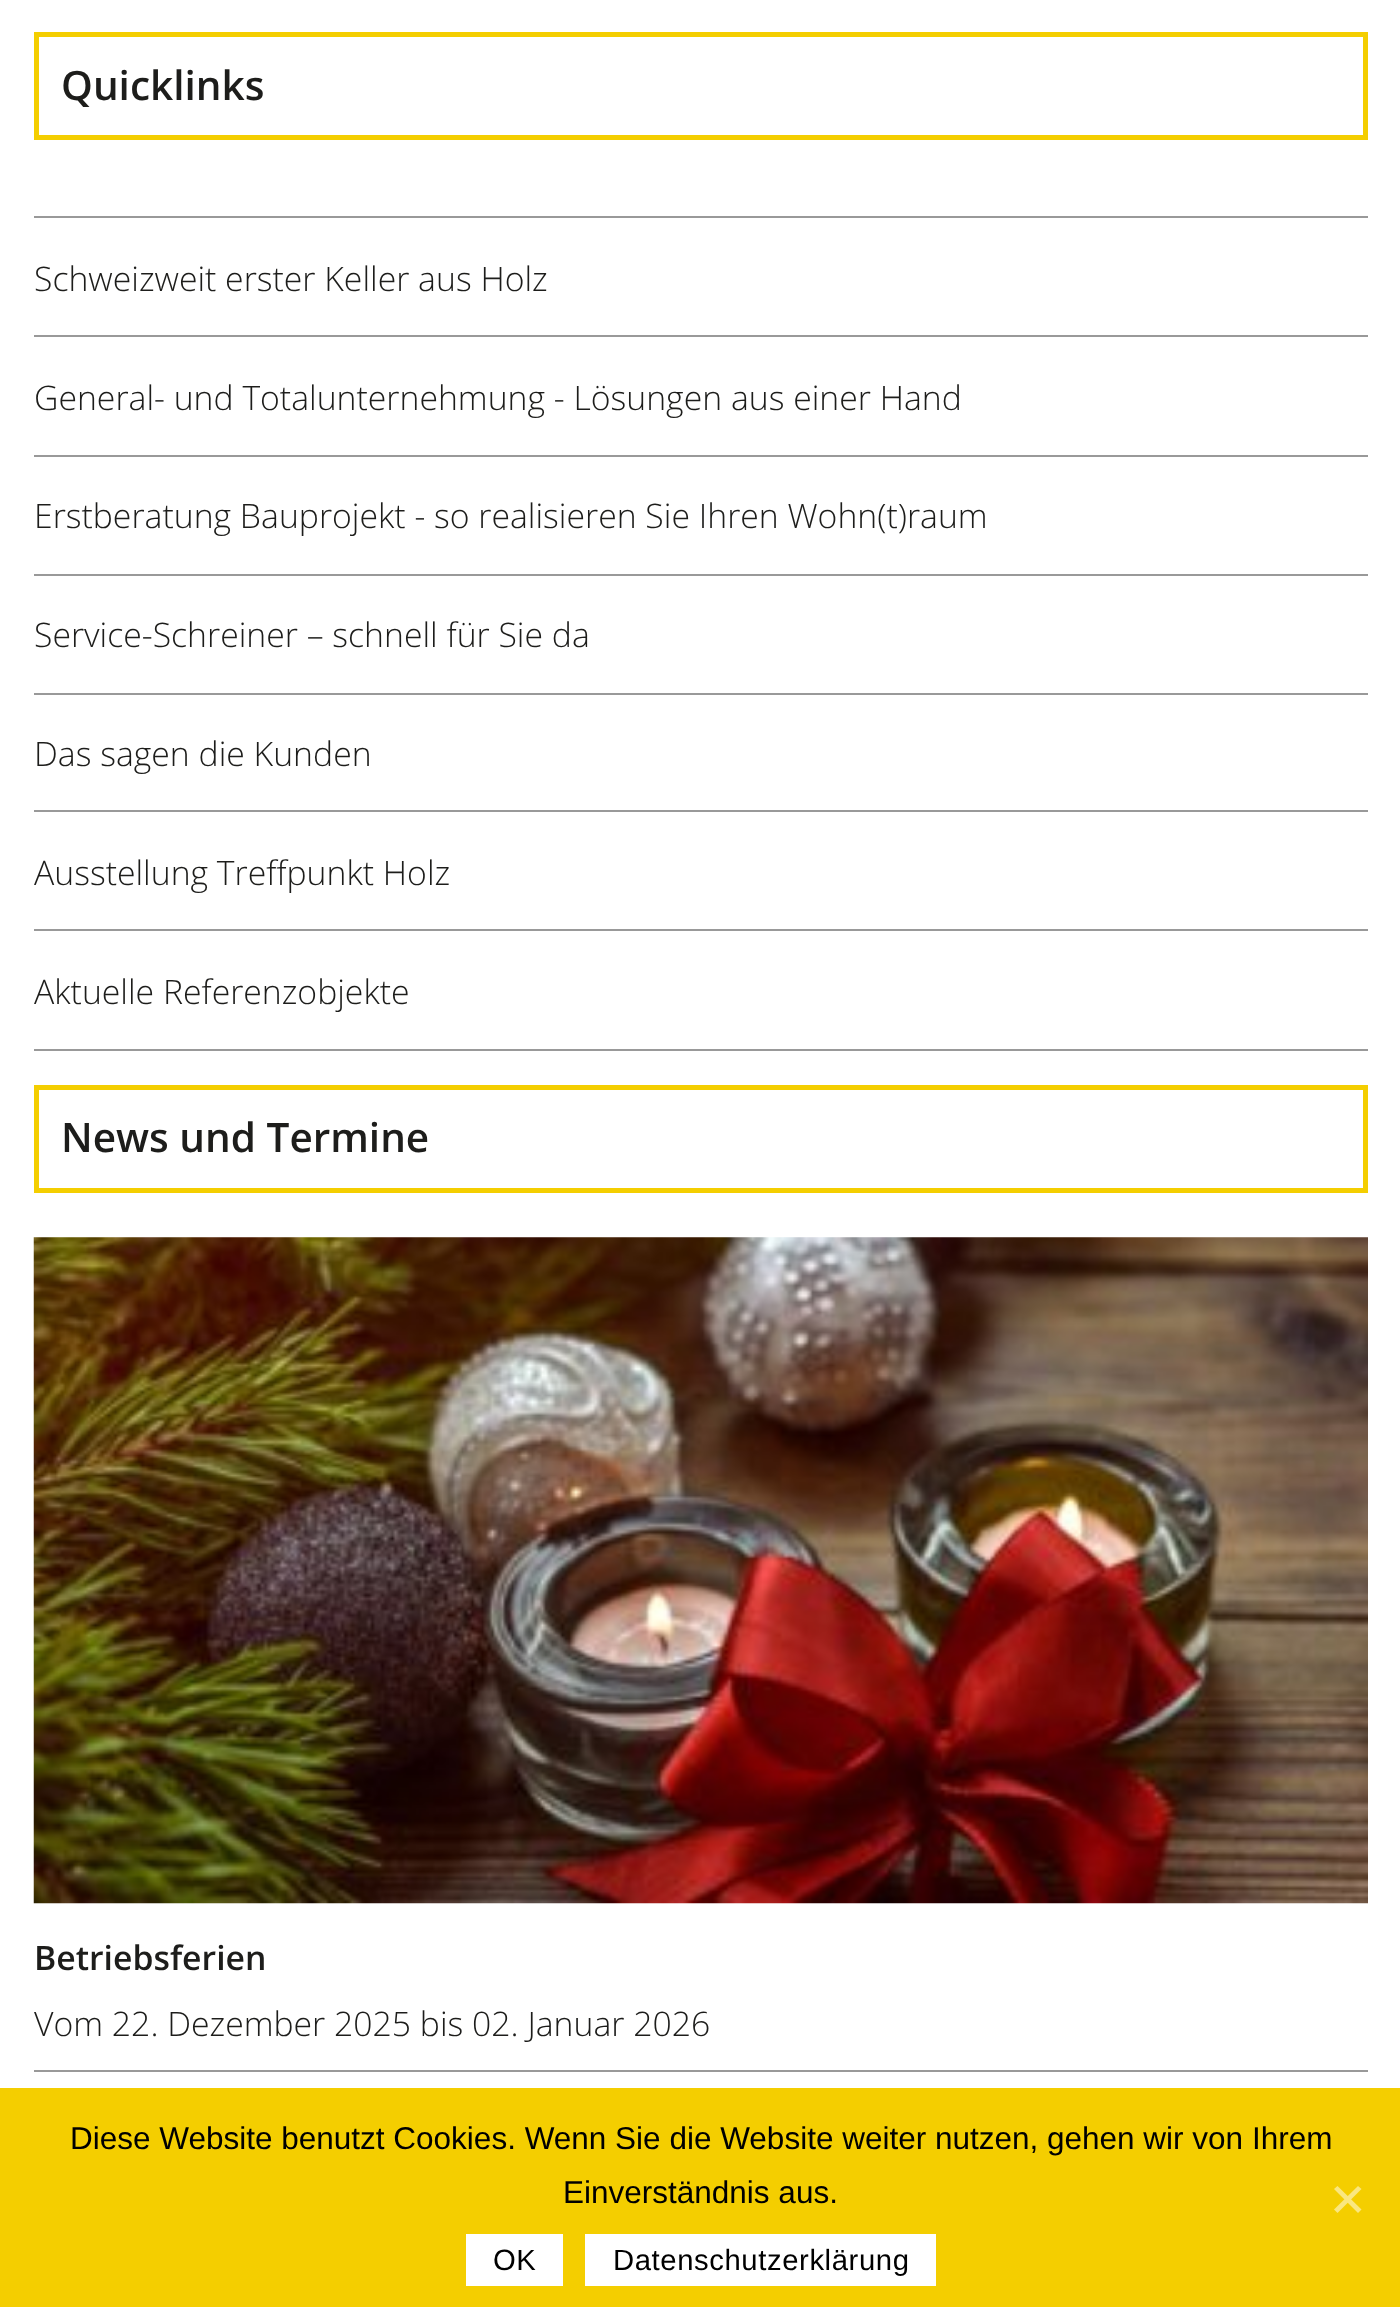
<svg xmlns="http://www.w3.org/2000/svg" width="1400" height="2307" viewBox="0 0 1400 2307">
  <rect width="100%" height="100%" fill="#fff"/>
  <path d="M36.5 34.5h1329v103H36.5z" fill="none" stroke="#f4ce00" stroke-width="5"/>
  <path d="M34 216h1334v2H34z" fill="#999"/>
  <path d="M34 335h1334v2H34z" fill="#999"/>
  <path d="M34 455h1334v2H34z" fill="#999"/>
  <path d="M34 574h1334v2H34z" fill="#999"/>
  <path d="M34 693h1334v2H34z" fill="#999"/>
  <path d="M34 810h1334v2H34z" fill="#999"/>
  <path d="M34 929h1334v2H34z" fill="#999"/>
  <path d="M34 1049h1334v2H34z" fill="#999"/>
  <path d="M36.5 1087.5h1329v103H36.5z" fill="none" stroke="#f4ce00" stroke-width="5"/>
  <image x="33" y="1237" width="1335" height="667" href="img/1.png"/>
  <path d="M34 2070h1334v2H34z" fill="#999"/>
  <path d="M0 2088h1400v219H0z" fill="#f4ce00"/>
  <path d="M1358 2186L1361.5 2189L1337.5 2213L1334 2209.5Z" fill="#fae780"/>
  <path d="M1334 2189L1337.5 2186L1361.5 2209.5L1358 2213Z" fill="#fae780"/>
  <path d="M466 2234h97v52H466z" fill="#fff"/>
  <path d="M585 2234h351v52H585z" fill="#fff"/>
  <text x="61" y="100" font-family="Open Sans" font-size="40.5" font-weight="600" fill="#1d1d1b">Quicklinks</text>
  <g font-family="Open Sans" font-size="33.75" font-weight="300" fill="#1d1d1b">
    <text x="34" y="291">Schweizweit erster Keller aus Holz</text>
    <text x="34" y="410">General- und Totalunternehmung - Lösungen aus einer Hand</text>
    <text x="34" y="528">Erstberatung Bauprojekt - so realisieren Sie Ihren Wohn(t)raum</text>
    <text x="34" y="647">Service-Schreiner – schnell für Sie da</text>
    <text x="34" y="766">Das sagen die Kunden</text>
    <text x="34" y="885">Ausstellung Treffpunkt Holz</text>
    <text x="34" y="1004">Aktuelle Referenzobjekte</text>
  </g>
  <text x="61" y="1152" font-family="Open Sans" font-size="40.5" font-weight="600" fill="#1d1d1b">News und Termine</text>
  <text x="34" y="1970" font-family="Open Sans" font-size="33.75" font-weight="600" fill="#1d1d1b">Betriebsferien</text>
  <text x="34" y="2036" font-family="Open Sans" font-size="33.75" font-weight="300" fill="#1d1d1b">Vom 22. Dezember 2025 bis 02. Januar 2026</text>
  <g font-family="Liberation Sans" font-size="31.5" fill="#000">
    <text x="70" y="2149">Diese Website benutzt Cookies. Wenn Sie die Website weiter nutzen, gehen wir von Ihrem</text>
    <text x="563" y="2203">Einverständnis aus.</text>
  </g>
  <g font-family="Liberation Sans" font-size="29.25" letter-spacing="0.6" fill="#000">
    <text x="493" y="2270">OK</text>
    <text x="613" y="2270">Datenschutzerklärung</text>
  </g>
</svg>
